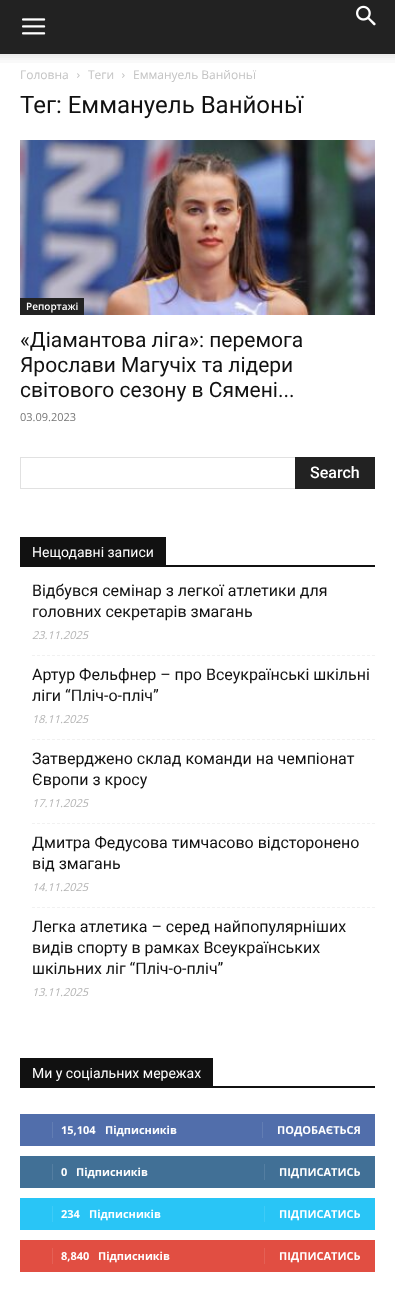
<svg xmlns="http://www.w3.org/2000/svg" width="395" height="1306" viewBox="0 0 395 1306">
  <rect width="100%" height="100%" fill="#fff"/>
  <path d="M0 0h395v54H0z" fill="#222"/>
  <image x="22" y="18" width="24" height="17" href="img/1.png"/>
  <image x="356" y="5" width="20" height="21" href="img/2.png"/>
  <image x="0" y="54" width="395" height="9" href="img/3.png"/>
  <image x="77" y="73" width="3" height="5" href="img/4.png"/>
  <image x="122" y="73" width="3" height="5" href="img/4.png"/>
  <image x="20" y="140" width="355" height="175" href="img/5.png"/>
  <path d="M20 298h64v17H20z" fill="#222"/>
  <path d="M20 457h275v1H20z" fill="#e1e1e1"/>
  <path d="M20 488h275v1H20z" fill="#e1e1e1"/>
  <path d="M20 457h1v32H20z" fill="#e1e1e1"/>
  <path d="M295 457h80v32H295z" fill="#222"/>
  <path d="M20 565h355v2H20z" fill="#111"/>
  <path d="M20 537h146v28H20z" fill="#111"/>
  <path d="M32 655.5H375" fill="none" stroke="#f1f1f1" stroke-dasharray="3 2"/>
  <path d="M32 739.5H375" fill="none" stroke="#f1f1f1" stroke-dasharray="3 2"/>
  <path d="M32 823.5H375" fill="none" stroke="#f1f1f1" stroke-dasharray="3 2"/>
  <path d="M32 907.5H375" fill="none" stroke="#f1f1f1" stroke-dasharray="3 2"/>
  <path d="M20 1086h355v2H20z" fill="#111"/>
  <path d="M20 1058h193v28H20z" fill="#111"/>
  <path d="M20 1114h355v32H20z" fill="#516eab"/>
  <path d="M52 1122h1v16H52z" fill="#627db3"/>
  <path d="M262 1122h1v16H262z" fill="#627db3"/>
  <path d="M20 1156h355v32H20z" fill="#417096"/>
  <path d="M52 1164h1v16H52z" fill="#547ea1"/>
  <path d="M264 1164h1v16H264z" fill="#547ea1"/>
  <path d="M20 1198h355v32H20z" fill="#29c5f6"/>
  <path d="M52 1206h1v16H52z" fill="#3ecbf7"/>
  <path d="M264 1206h1v16H264z" fill="#3ecbf7"/>
  <path d="M20 1240h355v32H20z" fill="#e14e42"/>
  <path d="M52 1248h1v16H52z" fill="#e46055"/>
  <path d="M264 1248h1v16H264z" fill="#e46055"/>
  <g font-family="Open Sans" font-size="12" fill="#c3c3c3">
    <text x="20" y="79">Головна</text>
    <text x="88" y="79">Теги</text>
    <text x="133" y="79">Еммануель Ванйоньї</text>
  </g>
  <text x="20" y="113" font-family="Roboto" font-size="24" fill="#111">Тег: Еммануель Ванйоньї</text>
  <text x="26" y="310" font-family="Open Sans" font-size="10" font-weight="600" fill="#fff">Репортажі</text>
  <g font-family="Roboto" font-size="21" fill="#111">
    <text x="20" y="347">«Діамантова ліга»: перемога</text>
    <text x="20" y="372">Ярослави Магучіх та лідери</text>
    <text x="20" y="397">світового сезону в Сямені...</text>
  </g>
  <text x="20" y="421" font-family="Open Sans" font-size="11" fill="#767676">03.09.2023</text>
  <text x="310" y="478" font-family="Roboto" font-size="16" font-weight="500" fill="#fff">Search</text>
  <text x="32" y="557" font-family="Roboto" font-size="14" fill="#fff">Нещодавні записи</text>
  <g font-family="Roboto" font-size="16" fill="#111">
    <text x="32" y="596">Відбувся семінар з легкої атлетики для</text>
    <text x="32" y="617">головних секретарів змагань</text>
  </g>
  <text x="32" y="639" font-family="Open Sans" font-size="11" font-style="italic" fill="#b5b5b5">23.11.2025</text>
  <g font-family="Roboto" font-size="16" fill="#111">
    <text x="32" y="680">Артур Фельфнер – про Всеукраїнські шкільні</text>
    <text x="32" y="701">ліги “Пліч-о-пліч”</text>
  </g>
  <text x="32" y="723" font-family="Open Sans" font-size="11" font-style="italic" fill="#b5b5b5">18.11.2025</text>
  <g font-family="Roboto" font-size="16" fill="#111">
    <text x="32" y="764">Затверджено склад команди на чемпіонат</text>
    <text x="32" y="785">Європи з кросу</text>
  </g>
  <text x="32" y="807" font-family="Open Sans" font-size="11" font-style="italic" fill="#b5b5b5">17.11.2025</text>
  <g font-family="Roboto" font-size="16" fill="#111">
    <text x="32" y="848">Дмитра Федусова тимчасово відсторонено</text>
    <text x="32" y="869">від змагань</text>
  </g>
  <text x="32" y="891" font-family="Open Sans" font-size="11" font-style="italic" fill="#b5b5b5">14.11.2025</text>
  <g font-family="Roboto" font-size="16" fill="#111">
    <text x="32" y="932">Легка атлетика – серед найпопулярніших</text>
    <text x="32" y="953">видів спорту в рамках Всеукраїнських</text>
    <text x="32" y="974">шкільних ліг “Пліч-о-пліч”</text>
  </g>
  <text x="32" y="996" font-family="Open Sans" font-size="11" font-style="italic" fill="#b5b5b5">13.11.2025</text>
  <text x="32" y="1078" font-family="Roboto" font-size="14" fill="#fff">Ми у соціальних мережах</text>
  <g font-family="Open Sans" font-size="11" font-weight="bold" fill="#fff">
    <text x="61" y="1134">15,104</text>
    <text x="105" y="1134">Підписників</text>
    <text x="277" y="1134">ПОДОБАЄТЬСЯ</text>
    <text x="61" y="1176">0</text>
    <text x="76" y="1176">Підписників</text>
    <text x="279" y="1176">ПІДПИСАТИСЬ</text>
    <text x="61" y="1218">234</text>
    <text x="89" y="1218">Підписників</text>
    <text x="279" y="1218">ПІДПИСАТИСЬ</text>
    <text x="61" y="1260">8,840</text>
    <text x="98" y="1260">Підписників</text>
    <text x="279" y="1260">ПІДПИСАТИСЬ</text>
  </g>
</svg>
